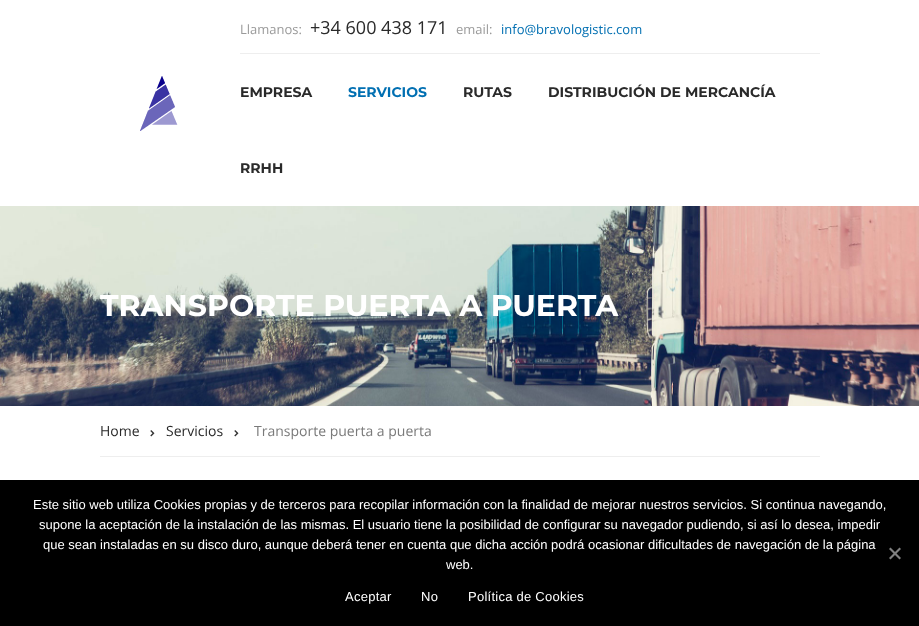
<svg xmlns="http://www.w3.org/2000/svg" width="919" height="626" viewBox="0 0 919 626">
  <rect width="100%" height="100%" fill="#fff"/>
  <image x="140" y="76" width="38" height="55" href="img/1.png"/>
  <path d="M240 53h580v1H240z" fill="#eee"/>
  <image x="0" y="206" width="919" height="200" href="img/2.png"/>
  <path d="M100 456h720v1H100z" fill="#eee"/>
  <image x="150" y="430" width="5" height="7" href="img/3.png"/>
  <image x="234" y="430" width="5" height="7" href="img/3.png"/>
  <path d="M0 480h919v146H0z" fill="#000"/>
  <path d="M899.5 547.5L901 549L890.5 559.5L889 558Z" fill="#808080"/>
  <path d="M889 549L890.5 547.5L901 558L899.5 559.5Z" fill="#808080"/>
  <text x="240" y="34" font-family="Open Sans" font-size="13" fill="#9a9a9a">Llamanos:</text>
  <text x="310" y="34" font-family="Open Sans" font-size="18" fill="#2a2a2a">+34 600 438 171</text>
  <text x="456" y="34" font-family="Open Sans" font-size="13" fill="#9a9a9a">email:</text>
  <text x="501" y="34" font-family="Open Sans" font-size="13" fill="#006fb2">info@bravologistic.com</text>
  <text x="240" y="97" font-family="Montserrat" font-size="14" font-weight="bold" fill="#2a2a2a">EMPRESA</text>
  <text x="348" y="97" font-family="Montserrat" font-size="14" font-weight="bold" fill="#006fb2">SERVICIOS</text>
  <g font-family="Montserrat" font-size="14" font-weight="bold" fill="#2a2a2a">
    <text x="463" y="97">RUTAS</text>
    <text x="548" y="97">DISTRIBUCIÓN DE MERCANCÍA</text>
    <text x="240" y="173">RRHH</text>
  </g>
  <text x="100" y="316" font-family="Montserrat" font-size="30" font-weight="bold" fill="#fff">TRANSPORTE PUERTA A PUERTA</text>
  <g font-family="Open Sans" font-size="14" fill="#2a2a2a">
    <text x="100" y="436">Home</text>
    <text x="166" y="436">Servicios</text>
  </g>
  <text x="254" y="436" font-family="Open Sans" font-size="14" fill="#7a7a7a">Transporte puerta a puerta</text>
  <g font-family="Liberation Sans" font-size="13" fill="#fff">
    <text x="33" y="509">Este sitio web utiliza Cookies propias y de terceros para recopilar información con la finalidad de mejorar nuestros servicios. Si continua navegando,</text>
    <text x="39" y="529">supone la aceptación de la instalación de las mismas. El usuario tiene la posibilidad de configurar su navegador pudiendo, si así lo desea, impedir</text>
    <text x="43" y="549">que sean instaladas en su disco duro, aunque deberá tener en cuenta que dicha acción podrá ocasionar dificultades de navegación de la página</text>
    <text x="446" y="569">web.</text>
  </g>
  <g font-family="Liberation Sans" font-size="13" letter-spacing="0.25" fill="#fff">
    <text x="345" y="601">Aceptar</text>
    <text x="421" y="601">No</text>
    <text x="468" y="601">Política de Cookies</text>
  </g>
</svg>
